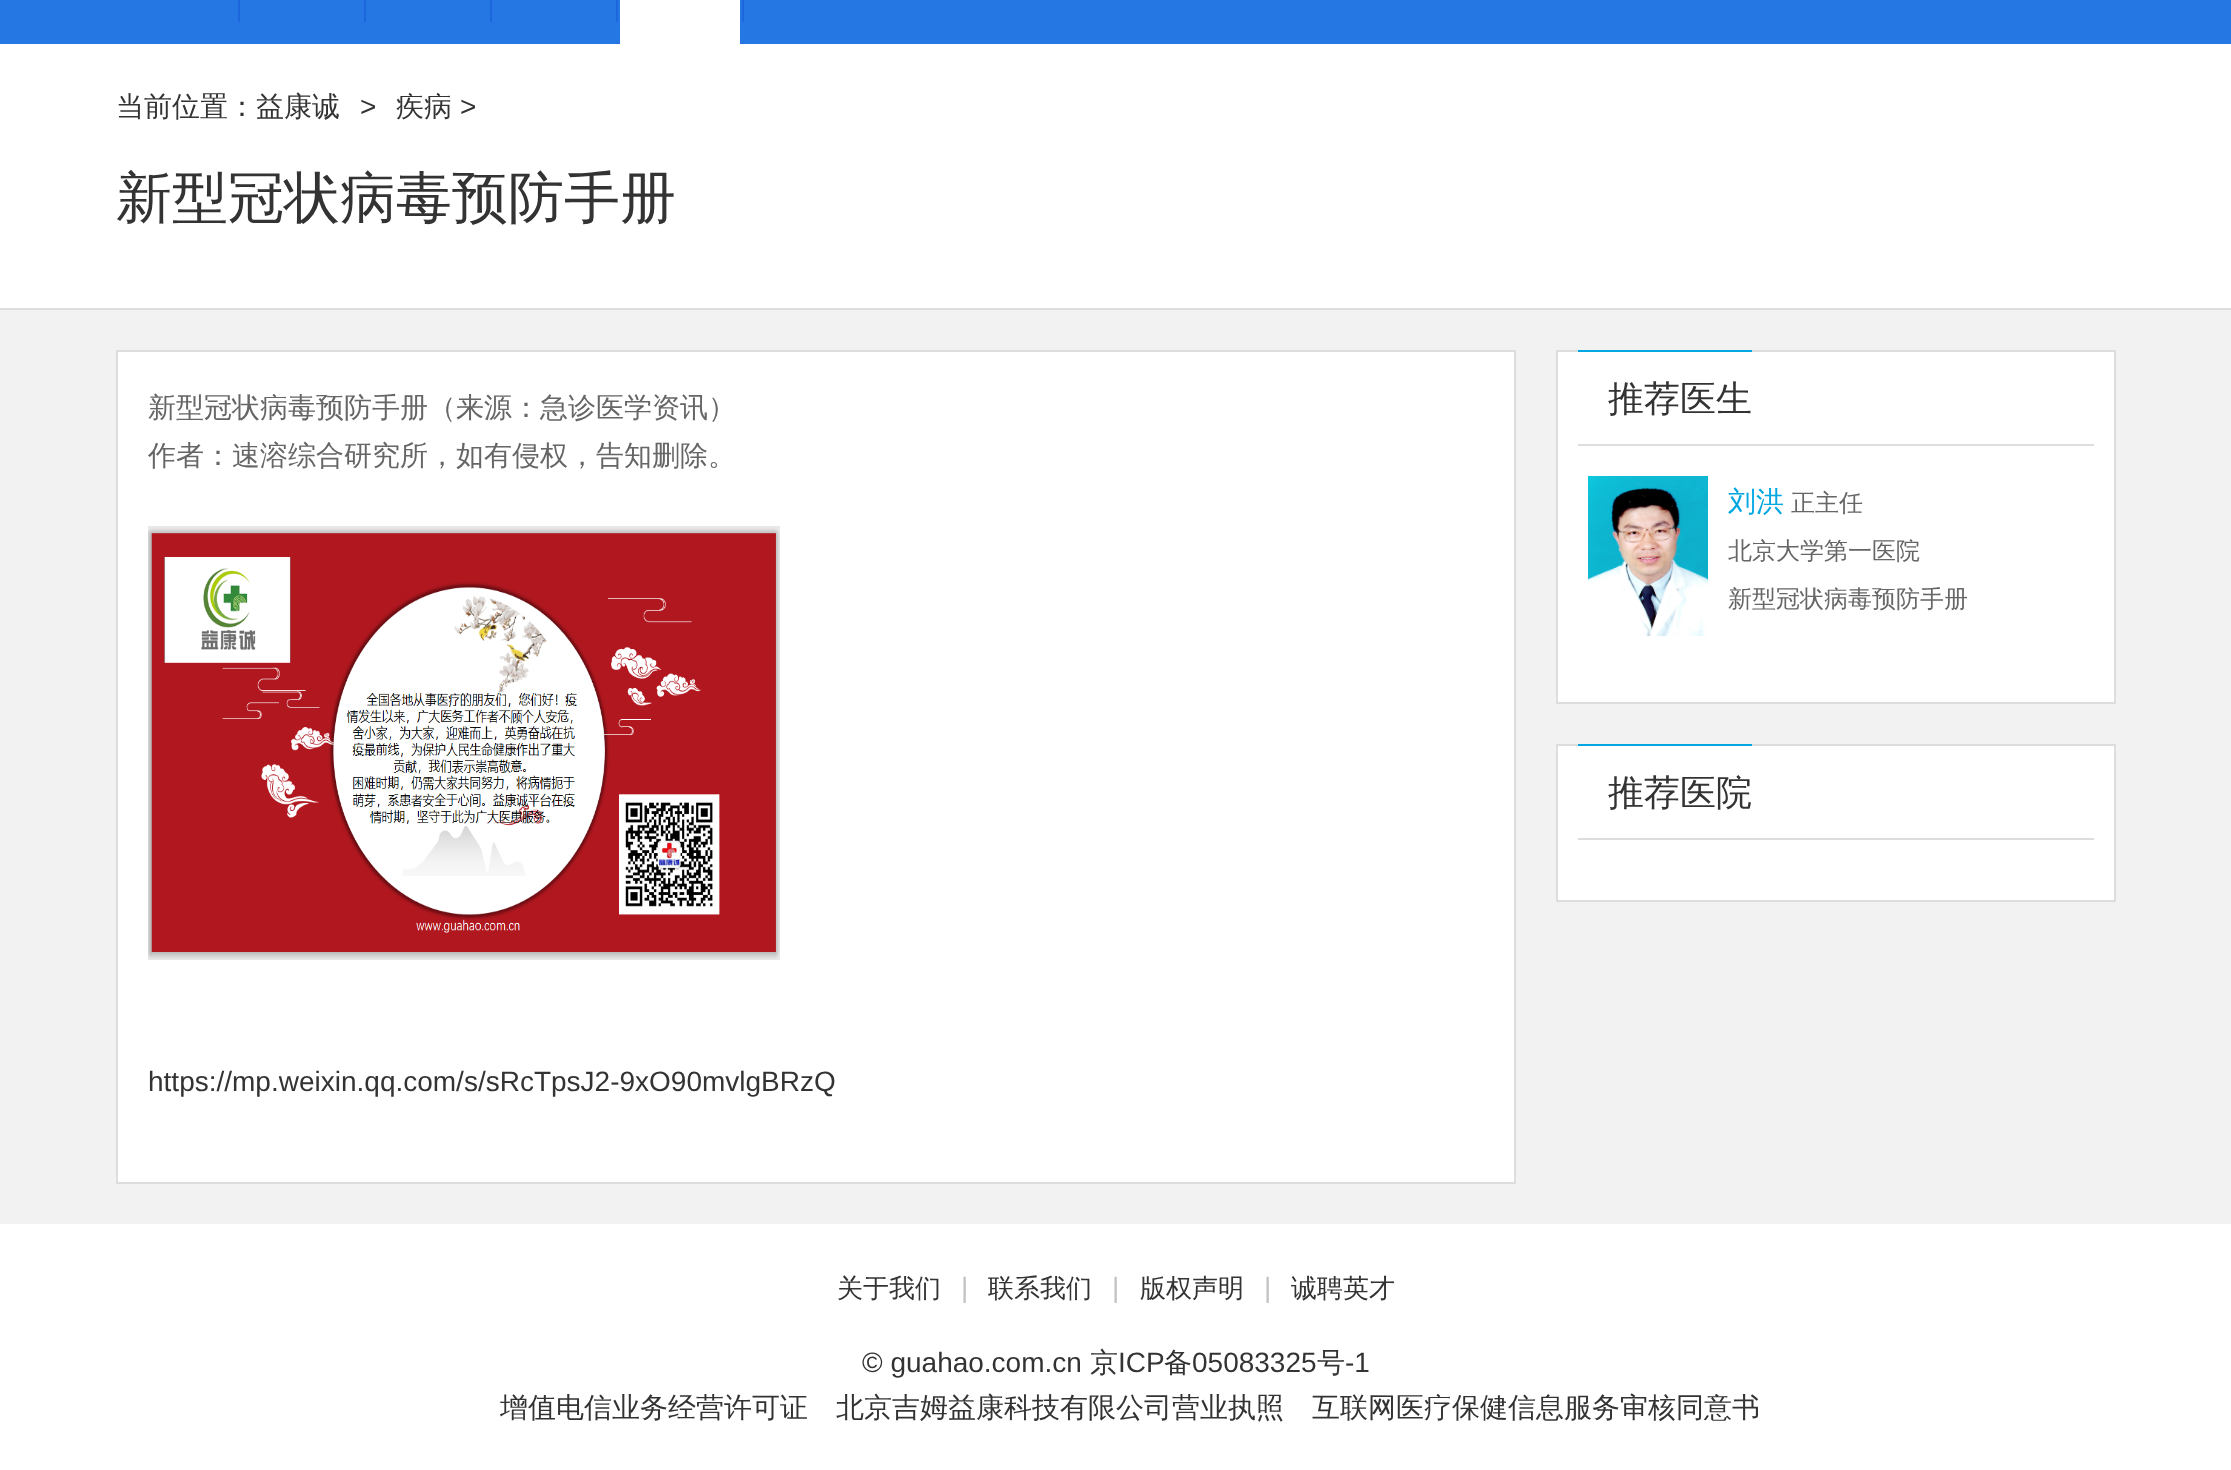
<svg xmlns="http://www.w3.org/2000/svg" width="2231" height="1470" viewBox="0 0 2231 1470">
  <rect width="100%" height="100%" fill="#fff"/>
  <path d="M0 0h2231v44H0z" fill="#2577e3"/>
  <path d="M238 0h2v22H238z" fill="#1d67dd"/>
  <path d="M364 0h2v22H364z" fill="#1d67dd"/>
  <path d="M490 0h2v22H490z" fill="#1d67dd"/>
  <path d="M616 0h2v22H616z" fill="#1d67dd"/>
  <path d="M620 0h120v44H620z" fill="#fff"/>
  <path d="M742 0h2v22H742z" fill="#1d67dd"/>
  <path d="M0 308h2231v2H0z" fill="#ddd"/>
  <path d="M0 310h2231v914H0z" fill="#f2f2f2"/>
  <path d="M117 351h1398v832H117z" fill="#fff" stroke="#ddd" stroke-width="2"/>
  <image x="148" y="526" width="632" height="434" href="img/1.png"/>
  <path d="M1557 351h558v352H1557z" fill="#fff" stroke="#ddd" stroke-width="2"/>
  <path d="M1578 444h516v2H1578z" fill="#ddd"/>
  <path d="M1578 350h174v2H1578z" fill="#00a7e1"/>
  <image x="1588" y="476" width="120" height="160" href="img/2.png"/>
  <path d="M1557 745h558v156H1557z" fill="#fff" stroke="#ddd" stroke-width="2"/>
  <path d="M1578 838h516v2H1578z" fill="#ddd"/>
  <path d="M1578 744h174v2H1578z" fill="#00a7e1"/>
  <text x="116" y="116" font-family="WenQuanYi Zen Hei" font-size="28" font-weight="500" fill="#333">当前位置：益康诚</text>
  <text x="360" y="116" font-family="Liberation Sans" font-size="28" fill="#333">&gt;</text>
  <text x="396" y="116" font-family="WenQuanYi Zen Hei" font-size="28" font-weight="500" fill="#333">疾病</text>
  <text x="460" y="116" font-family="Liberation Sans" font-size="28" fill="#333">&gt;</text>
  <text x="116" y="217" font-family="WenQuanYi Zen Hei" font-size="56" font-weight="500" fill="#333">新型冠状病毒预防手册</text>
  <g font-family="WenQuanYi Zen Hei" font-size="28" font-weight="500" fill="#666">
    <text x="148" y="417">新型冠状病毒预防手册（来源：急诊医学资讯）</text>
    <text x="148" y="465">作者：速溶综合研究所，如有侵权，告知删除。</text>
  </g>
  <text x="148" y="1091" font-family="Liberation Sans" font-size="28" fill="#333">https://mp.weixin.qq.com/s/sRcTpsJ2-9xO90mvlgBRzQ</text>
  <text x="1608" y="411" font-family="WenQuanYi Zen Hei" font-size="36" font-weight="500" fill="#333">推荐医生</text>
  <text x="1728" y="511" font-family="WenQuanYi Zen Hei" font-size="28" font-weight="500" fill="#00a7e1">刘洪</text>
  <g font-family="WenQuanYi Zen Hei" font-size="24" font-weight="500" fill="#666">
    <text x="1791" y="511">正主任</text>
    <text x="1728" y="559">北京大学第一医院</text>
    <text x="1728" y="607">新型冠状病毒预防手册</text>
  </g>
  <text x="1608" y="805" font-family="WenQuanYi Zen Hei" font-size="36" font-weight="500" fill="#333">推荐医院</text>
  <text x="837" y="1297" font-family="WenQuanYi Zen Hei" font-size="26" font-weight="500" fill="#333">关于我们</text>
  <text x="961" y="1297" font-family="Liberation Sans" font-size="28" fill="#c2c2c2">|</text>
  <text x="988" y="1297" font-family="WenQuanYi Zen Hei" font-size="26" font-weight="500" fill="#333">联系我们</text>
  <text x="1112" y="1297" font-family="Liberation Sans" font-size="28" fill="#c2c2c2">|</text>
  <text x="1140" y="1297" font-family="WenQuanYi Zen Hei" font-size="26" font-weight="500" fill="#333">版权声明</text>
  <text x="1264" y="1297" font-family="Liberation Sans" font-size="28" fill="#c2c2c2">|</text>
  <text x="1291" y="1297" font-family="WenQuanYi Zen Hei" font-size="26" font-weight="500" fill="#333">诚聘英才</text>
  <text x="862" y="1372" font-family="Liberation Sans" font-size="28" fill="#333">© guahao.com.cn</text>
  <text x="1090" y="1372" font-family="WenQuanYi Zen Hei" font-size="28" font-weight="500" fill="#333">京</text>
  <text x="1118" y="1372" font-family="Liberation Sans" font-size="28" fill="#333">ICP</text>
  <text x="1164" y="1372" font-family="WenQuanYi Zen Hei" font-size="28" font-weight="500" fill="#333">备</text>
  <text x="1192" y="1372" font-family="Liberation Sans" font-size="28" fill="#333">05083325</text>
  <text x="1317" y="1372" font-family="WenQuanYi Zen Hei" font-size="28" font-weight="500" fill="#333">号</text>
  <text x="1345" y="1372" font-family="Liberation Sans" font-size="28" fill="#333">-1</text>
  <g font-family="WenQuanYi Zen Hei" font-size="28" font-weight="500" fill="#333">
    <text x="500" y="1417">增值电信业务经营许可证</text>
    <text x="836" y="1417">北京吉姆益康科技有限公司营业执照</text>
    <text x="1312" y="1417">互联网医疗保健信息服务审核同意书</text>
  </g>
</svg>
